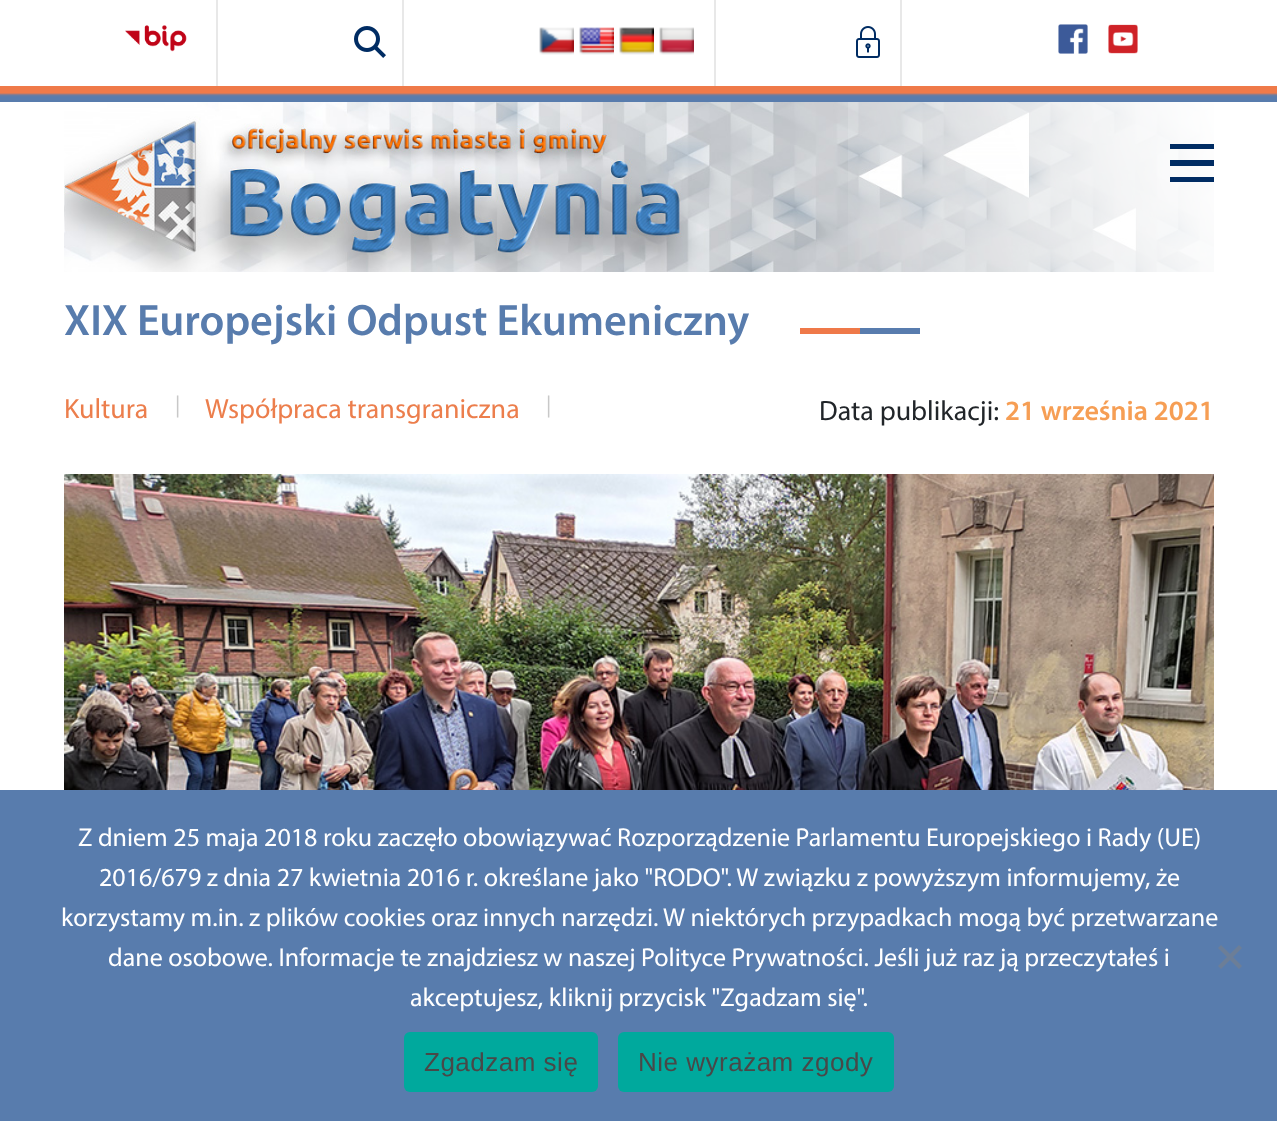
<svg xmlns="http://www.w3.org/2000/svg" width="1277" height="1121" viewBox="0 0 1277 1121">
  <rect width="100%" height="100%" fill="#fff"/>
  <path d="M216 0h2v86H216z" fill="#e8e8e8"/>
  <image x="125" y="25" width="62" height="27" href="img/1.png"/>
  <path d="M402 0h2v86H402z" fill="#e8e8e8"/>
  <image x="354" y="26" width="32" height="32" href="img/2.png"/>
  <path d="M714 0h2v86H714z" fill="#e8e8e8"/>
  <image x="539" y="27" width="35" height="28" href="img/3.png"/>
  <image x="579" y="27" width="35" height="28" href="img/4.png"/>
  <image x="619" y="27" width="35" height="28" href="img/5.png"/>
  <image x="659" y="27" width="35" height="28" href="img/6.png"/>
  <path d="M900 0h2v86H900z" fill="#e8e8e8"/>
  <image x="856" y="26" width="24" height="32" href="img/7.png"/>
  <image x="1058" y="24" width="30" height="30" href="img/8.png"/>
  <image x="1108" y="24" width="30" height="30" href="img/9.png"/>
  <image x="0" y="86" width="1277" height="16" href="img/10.png"/>
  <image x="64" y="102" width="1150" height="170" href="img/11.png"/>
  <path d="M1170 177h44v5H1170z" fill="#002c63"/>
  <path d="M1170 160h44v6H1170z" fill="#002c63"/>
  <path d="M1170 144h44v5H1170z" fill="#002c63"/>
  <image x="800" y="328" width="120" height="6" href="img/12.png"/>
  <image x="64" y="474" width="1150" height="316" href="img/13.png"/>
  <path d="M0 790h1277v331H0z" fill="#587cad"/>
  <path d="M1239 945L1242 948L1221 969L1218 966Z" fill="#6c7e97"/>
  <path d="M1218 948L1221 945L1242 966L1239 969Z" fill="#6c7e97"/>
  <rect x="404" y="1032" width="194" height="60" rx="6" fill="#00a99d"/>
  <rect x="618" y="1032" width="276" height="60" rx="6" fill="#00a99d"/>
  <text x="64" y="335" font-family="Myriad" font-size="44" font-weight="600" fill="#587cad">XIX Europejski Odpust Ekumeniczny</text>
  <text x="64" y="418" font-family="Myriad" font-size="28" fill="#ec7e4c">Kultura</text>
  <text x="175" y="412" font-family="Myriad" font-size="22" fill="#c8c8c8">|</text>
  <text x="205" y="418" font-family="Myriad" font-size="28" fill="#ec7e4c">Współpraca transgraniczna</text>
  <text x="546" y="412" font-family="Myriad" font-size="22" fill="#c8c8c8">|</text>
  <text x="819" y="420" font-family="Myriad" font-size="28" fill="#212529">Data publikacji:</text>
  <text x="1005" y="420" font-family="Myriad" font-size="28" font-weight="600" fill="#f69e54">21 września 2021</text>
  <g font-family="Myriad" font-size="26" fill="#fff">
    <text x="78" y="846">Z dniem 25 maja 2018 roku zaczęło obowiązywać Rozporządzenie Parlamentu Europejskiego i Rady (UE)</text>
    <text x="99" y="886">2016/679 z dnia 27 kwietnia 2016 r. określane jako "RODO". W związku z powyższym informujemy, że</text>
    <text x="61" y="926">korzystamy m.in. z plików cookies oraz innych narzędzi. W niektórych przypadkach mogą być przetwarzane</text>
    <text x="108" y="966">dane osobowe. Informacje te znajdziesz w naszej Polityce Prywatności. Jeśli już raz ją przeczytałeś i</text>
    <text x="410" y="1006">akceptujesz, kliknij przycisk "Zgadzam się".</text>
  </g>
  <g font-family="Liberation Sans" font-size="26" letter-spacing="0.5" fill="#484848">
    <text x="424" y="1071">Zgadzam się</text>
    <text x="638" y="1071">Nie wyrażam zgody</text>
  </g>
</svg>
